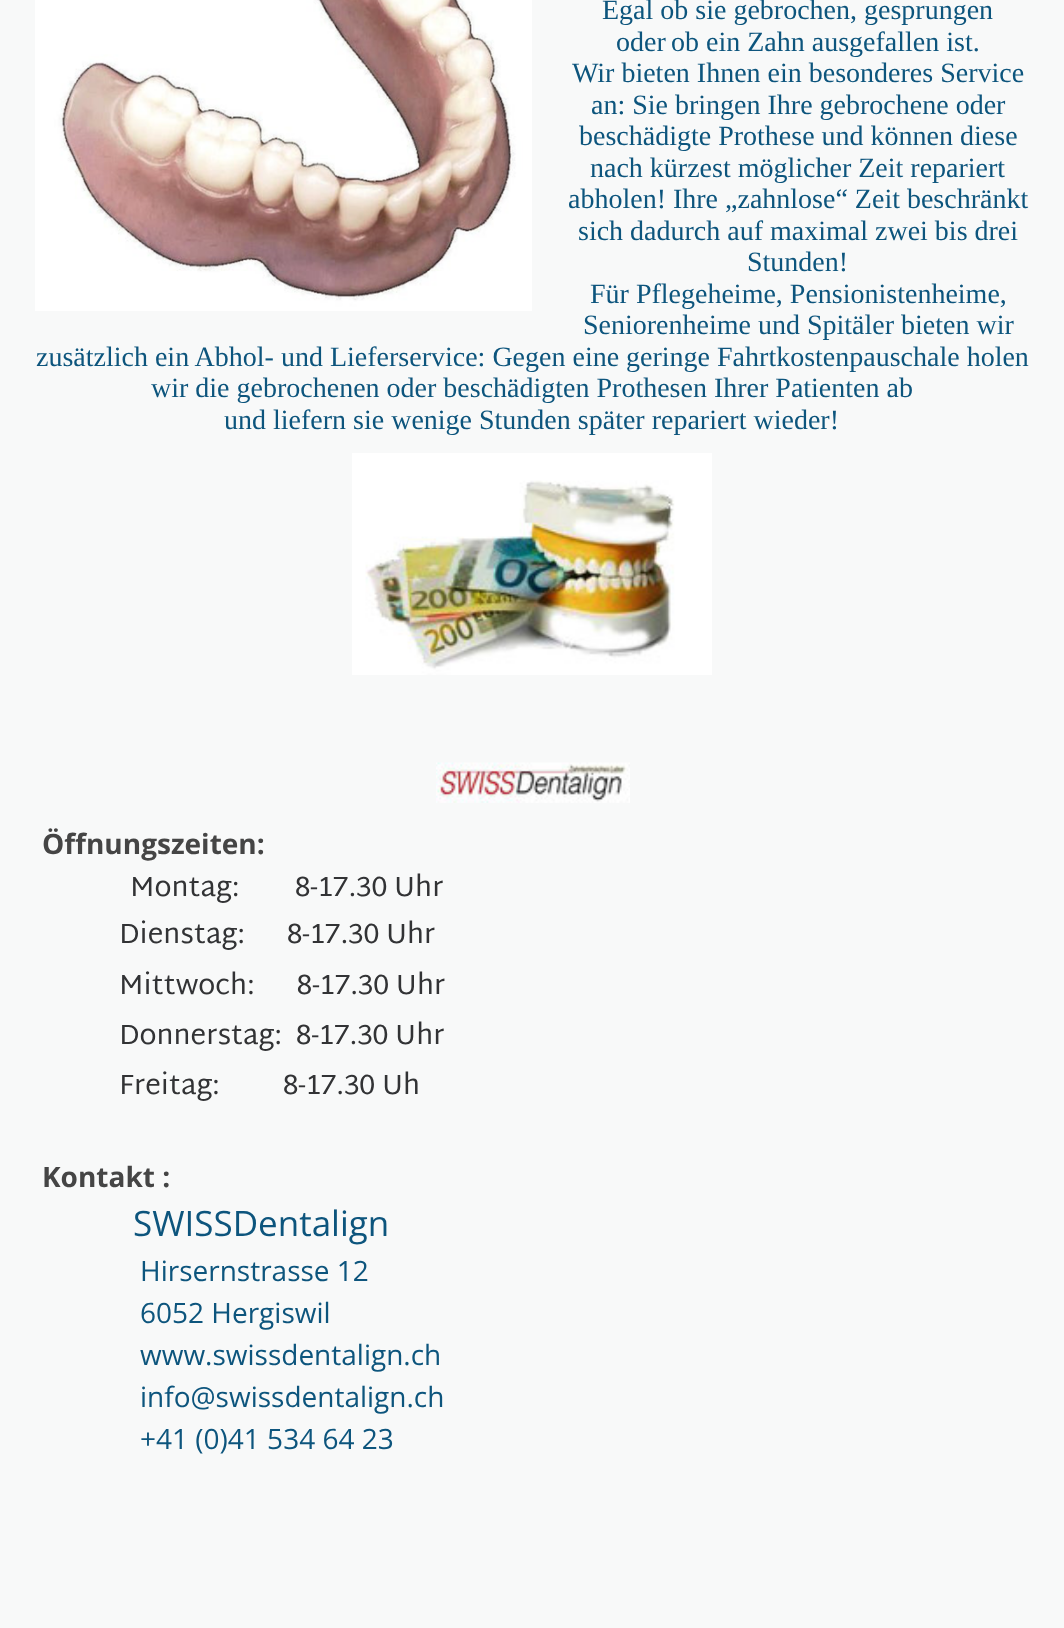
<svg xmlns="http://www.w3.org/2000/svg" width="1064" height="1628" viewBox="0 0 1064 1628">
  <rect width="100%" height="100%" fill="#f8f9f9"/>
  <image x="35" y="0" width="497" height="311" href="img/1.png"/>
  <image x="352" y="453" width="360" height="222" href="img/2.png"/>
  <image x="436" y="762" width="194" height="41" href="img/3.png"/>
  <g font-family="Liberation Serif" font-size="28" fill="#0d557d">
    <text x="602" y="19">Egal ob sie gebrochen, gesprungen</text>
    <text x="616" y="51">oder</text>
    <text x="671" y="51">ob ein Zahn ausgefallen ist.</text>
    <text x="572" y="82">Wir bieten Ihnen ein besonderes Service</text>
    <text x="591" y="114">an: Sie bringen Ihre gebrochene oder</text>
    <text x="579" y="145">beschädigte Prothese und können diese</text>
    <text x="590" y="177">nach kürzest möglicher Zeit repariert</text>
    <text x="568" y="208">abholen! Ihre „zahnlose“ Zeit beschränkt</text>
    <text x="578" y="240">sich dadurch auf maximal zwei bis drei</text>
    <text x="747" y="271">Stunden!</text>
    <text x="590" y="303">Für Pflegeheime, Pensionistenheime,</text>
    <text x="583" y="334">Seniorenheime und Spitäler bieten wir</text>
    <text x="36" y="366">zusätzlich ein Abhol- und Lieferservice: Gegen eine geringe Fahrtkostenpauschale holen</text>
    <text x="151" y="397">wir die gebrochenen oder beschädigten Prothesen Ihrer Patienten ab</text>
    <text x="224" y="429">und liefern sie wenige Stunden später repariert wieder!</text>
  </g>
  <text x="42" y="854" font-family="Open Sans" font-size="28" font-weight="bold" fill="#454545">Öffnungszeiten:</text>
  <g font-family="Martel Sans" font-size="28" fill="#323335">
    <text x="130" y="896">Montag:</text>
    <text x="295" y="896">8-17.30 Uhr</text>
    <text x="119" y="943" xml:space="preserve">Dienstag:      8-17.30 Uhr</text>
    <text x="119" y="994" xml:space="preserve">Mittwoch:      8-17.30 Uhr</text>
    <text x="119" y="1044" xml:space="preserve">Donnerstag:  8-17.30 Uhr</text>
    <text x="119" y="1094" xml:space="preserve">Freitag:         8-17.30 Uh</text>
  </g>
  <text x="42" y="1187" font-family="Open Sans" font-size="28" font-weight="bold" fill="#454545">Kontakt :</text>
  <text x="133" y="1236" font-family="Open Sans" font-size="35" fill="#0d557d">SWISSDentalign</text>
  <g font-family="Open Sans" font-size="28" fill="#0d557d">
    <text x="140" y="1281">Hirsernstrasse 12</text>
    <text x="140" y="1323">6052 Hergiswil</text>
    <text x="140" y="1365">www.swissdentalign.ch</text>
    <text x="140" y="1407">info@swissdentalign.ch</text>
    <text x="140" y="1449">+41 (0)41 534 64 23</text>
  </g>
</svg>
